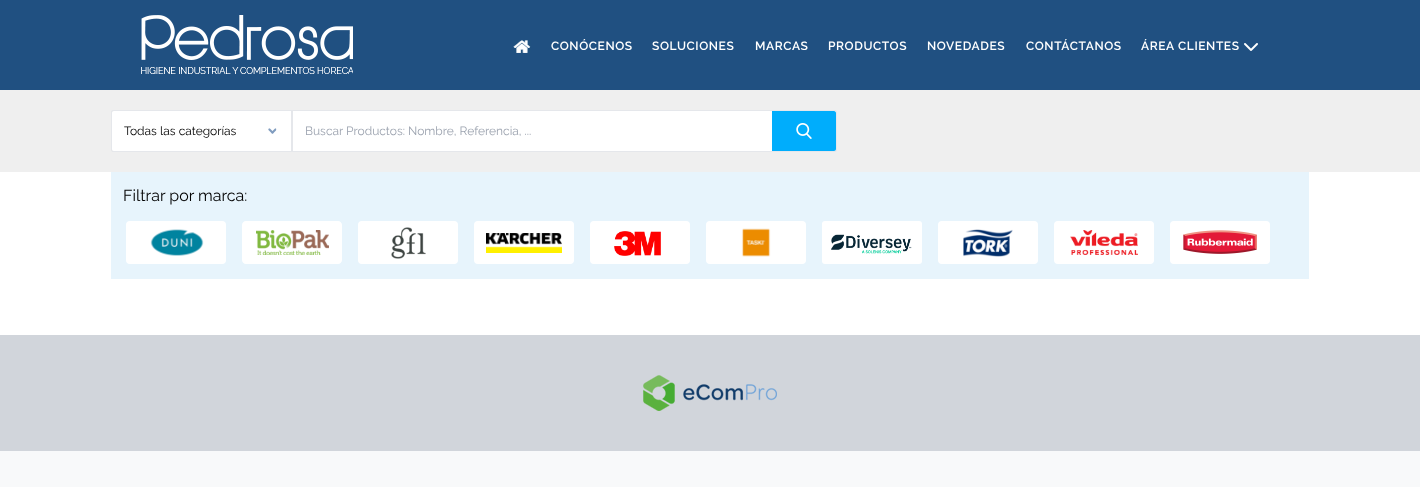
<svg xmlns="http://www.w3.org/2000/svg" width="1420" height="487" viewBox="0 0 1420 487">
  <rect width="100%" height="100%" fill="#fff"/>
  <path d="M0 0h1420v90H0z" fill="#205081"/>
  <image x="141" y="15" width="212" height="59" href="img/1.png"/>
  <image x="513" y="40" width="18" height="13" href="img/2.png"/>
  <image x="1244" y="43" width="14" height="8" href="img/3.png"/>
  <path d="M0 90h1420v82H0z" fill="#efefef"/>
  <rect x="111.5" y="110.5" width="725" height="41" rx="1.5" fill="none" stroke="#e5e7eb"/>
  <path d="M114 111H291V151H114C113 151 112 150 112 149V113C112 112 113 111 114 111Z" fill="#fff"/>
  <path d="M291 111h2v40H291z" fill="#e5e7eb"/>
  <image x="268" y="128" width="9" height="6" href="img/4.png"/>
  <path d="M293 111h479v40H293z" fill="#fff"/>
  <path d="M772 111H834C835 111 836 112 836 113V149C836 150 835 151 834 151H772Z" fill="#00adfc"/>
  <image x="796" y="123" width="16" height="16" href="img/5.png"/>
  <path d="M111 172h1198v107H111z" fill="#e7f4fc"/>
  <image x="126" y="221" width="100" height="43" href="img/6.png"/>
  <image x="242" y="221" width="100" height="43" href="img/7.png"/>
  <image x="358" y="221" width="100" height="43" href="img/8.png"/>
  <image x="474" y="221" width="100" height="43" href="img/9.png"/>
  <image x="590" y="221" width="100" height="43" href="img/10.png"/>
  <image x="706" y="221" width="100" height="43" href="img/11.png"/>
  <image x="822" y="221" width="100" height="43" href="img/12.png"/>
  <image x="938" y="221" width="100" height="43" href="img/13.png"/>
  <image x="1054" y="221" width="100" height="43" href="img/14.png"/>
  <image x="1170" y="221" width="100" height="43" href="img/15.png"/>
  <path d="M0 335h1420v116H0z" fill="#d1d5db"/>
  <image x="643" y="375" width="134" height="36" href="img/16.png"/>
  <path d="M0 451h1420v36H0z" fill="#f8f9fa"/>
  <g font-family="Raleway" font-size="12" font-weight="600" letter-spacing="0.6" fill="#fff">
    <text x="551" y="50">CONÓCENOS</text>
    <text x="652" y="50">SOLUCIONES</text>
    <text x="755" y="50">MARCAS</text>
    <text x="828" y="50">PRODUCTOS</text>
    <text x="927" y="50">NOVEDADES</text>
    <text x="1026" y="50">CONTÁCTANOS</text>
    <text x="1141" y="50">ÁREA CLIENTES</text>
  </g>
  <text x="124" y="135" font-family="Raleway" font-size="12" fill="#000">Todas las categorías</text>
  <text x="305" y="135" font-family="Raleway" font-size="12" fill="#9ca3af">Buscar Productos: Nombre, Referencia, ...</text>
  <text x="123" y="201" font-family="Raleway" font-size="16" fill="#000">Filtrar por marca:</text>
</svg>
